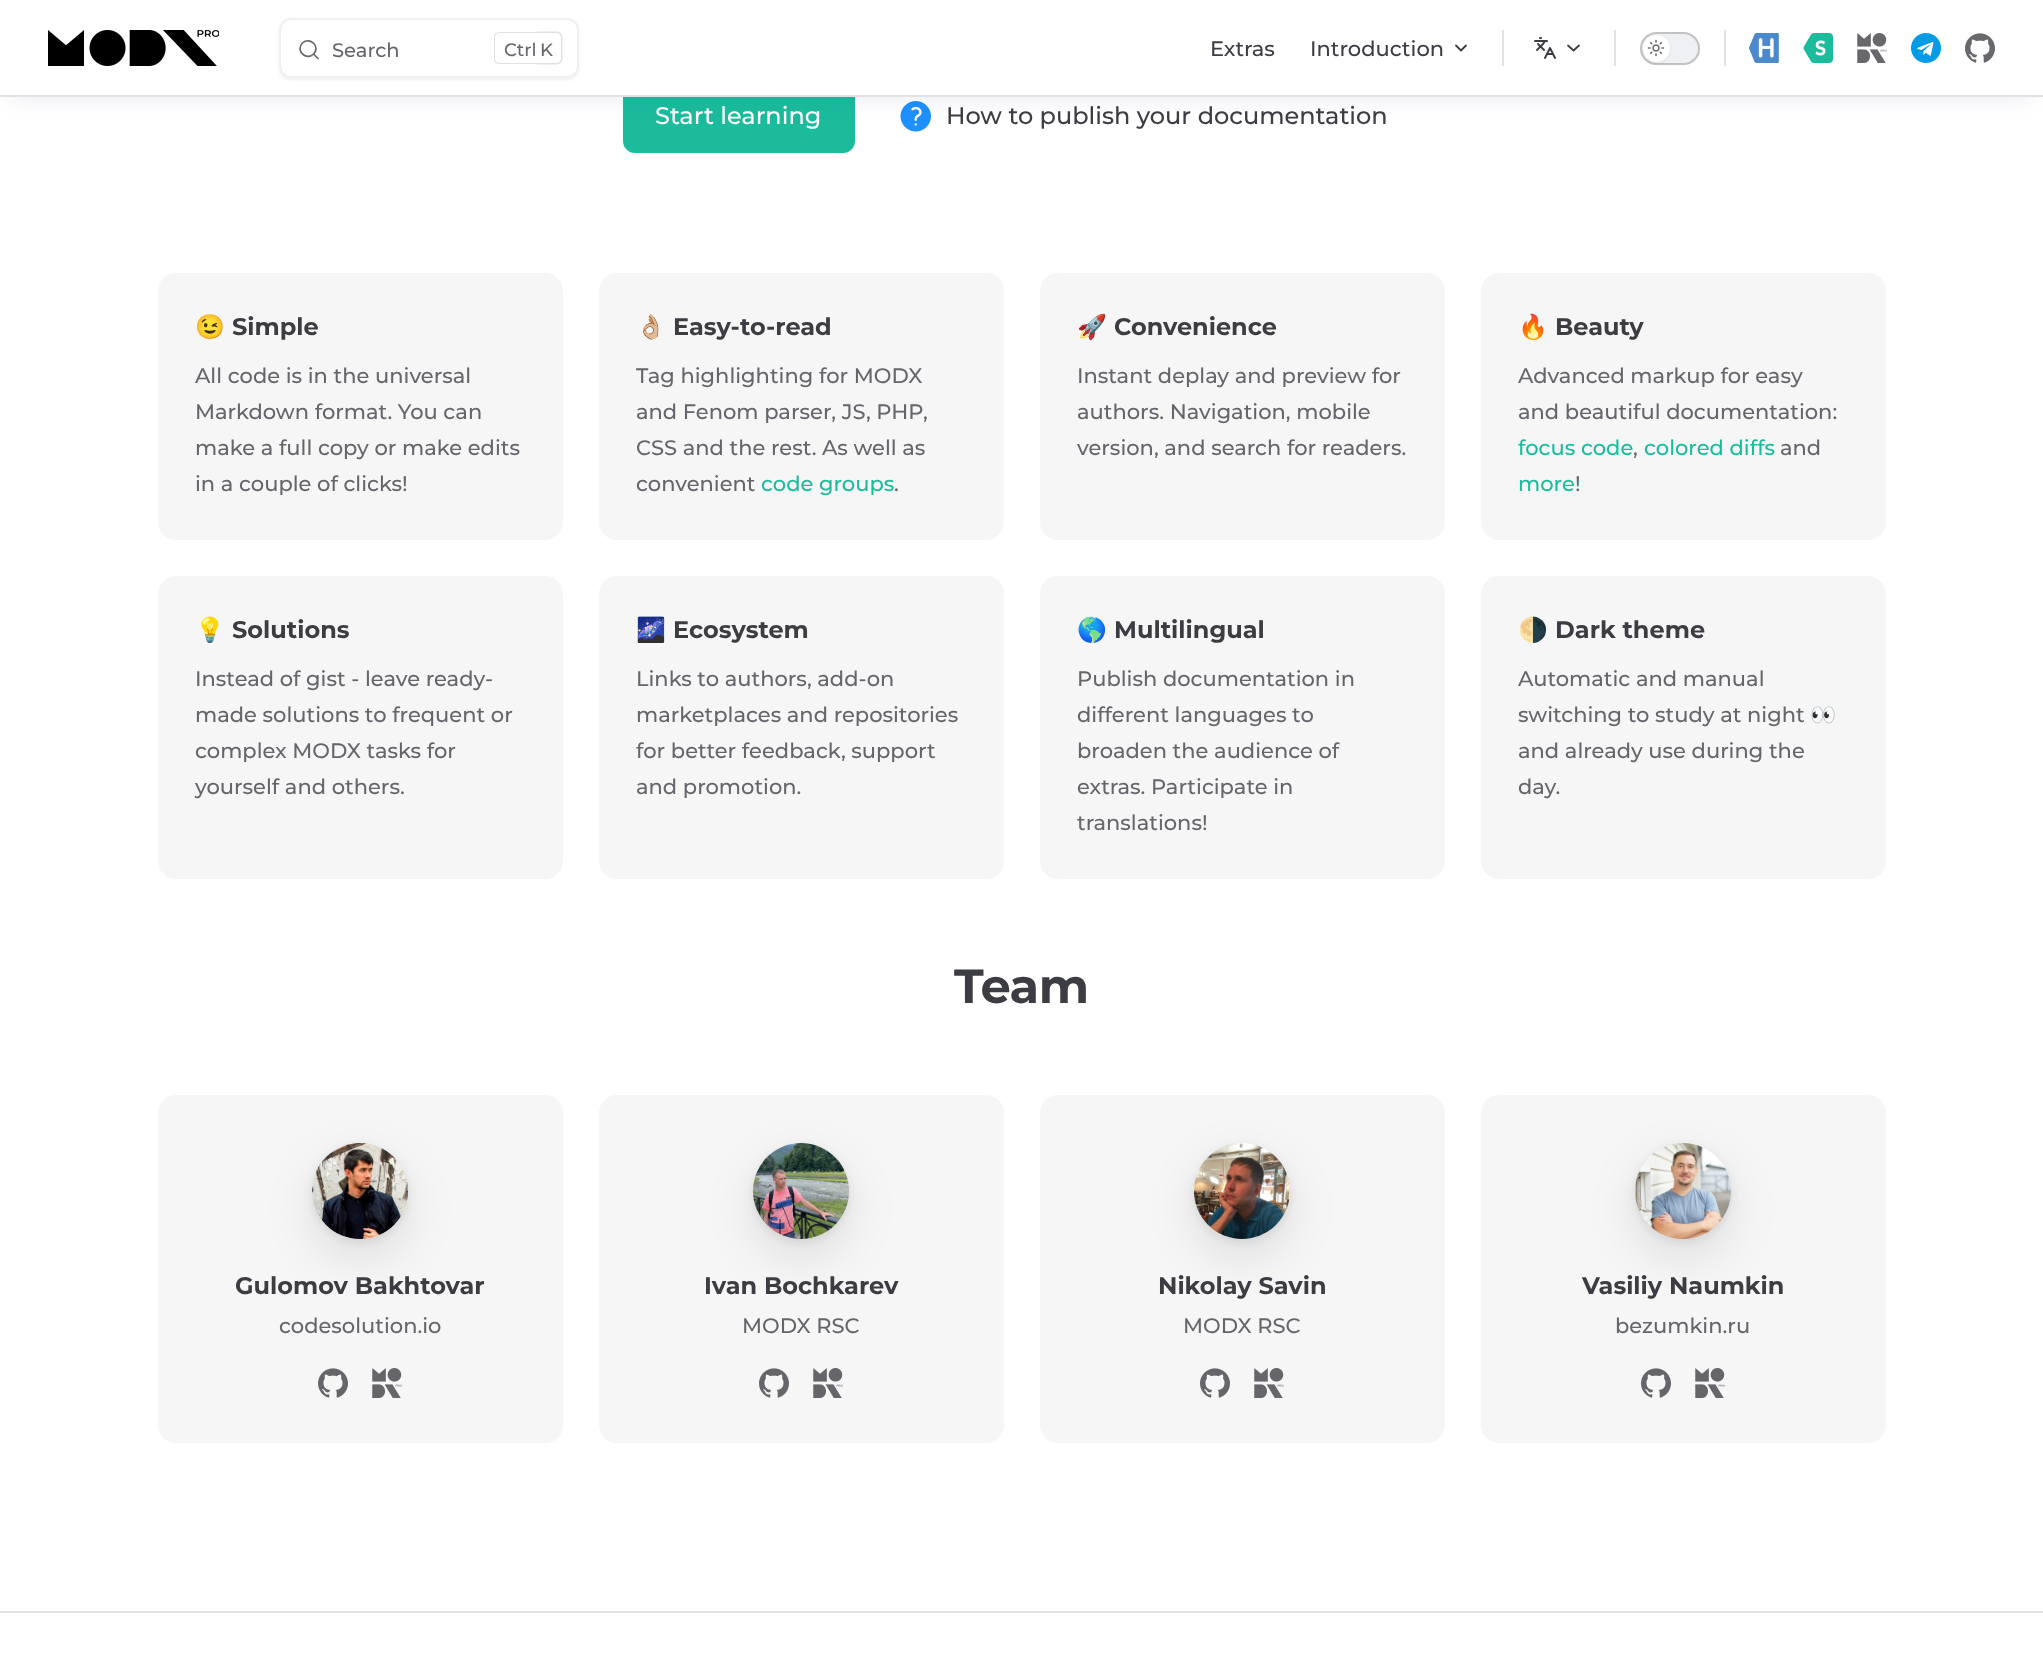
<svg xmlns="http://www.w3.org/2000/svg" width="2043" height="1669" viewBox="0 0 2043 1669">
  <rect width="100%" height="100%" fill="#fff"/>
  <rect x="626" y="84" width="226" height="66" rx="9" fill="#1abc9c" stroke="#1abc9c" stroke-width="6"/>
  <image x="900" y="101" width="31" height="31" href="img/9.png"/>
  <rect y="6" width="2043" height="96" rx="30" fill="#2f3f9314" filter="blur(11px)"/>
  <path d="M0 0h2043v95H0z" fill="#fff"/>
  <path d="M0 95h2043v2H0z" fill="#e2e2e3"/>
  <image x="48" y="30" width="171" height="36" href="img/1.png"/>
  <rect x="279" y="20" width="300" height="60" rx="12" fill="#0000000f" filter="blur(1.5px)"/>
  <rect x="279" y="18" width="300" height="60" rx="12" fill="#fff"/>
  <rect x="280" y="19" width="298" height="58" rx="11" fill="none" stroke="#8e96aa24" stroke-width="2"/>
  <path d="M313.5 54L318 58.5L313.5 54C306 61.5 295 50 302.5 43C310 36 321 47 313.5 54Z" fill="none" stroke="#67676c" stroke-width="1.7" stroke-linecap="round" stroke-linejoin="round"/>
  <path d="M500 32H537V64H500C496 64 494 62 494 58V38C494 34 496 32 500 32ZM500 33H537V63H500C497 63 495 61 495 58V38C495 35 497 33 500 33Z" fill="#e2e2e3" fill-rule="evenodd"/>
  <path d="M537 31.5H556.5C560 31.5 562.5 34 562.5 37.5V58.5C562.5 62 560 64.5 556.5 64.5H537ZM537 33H556.5C559 33 561 35 561 37.5V58.5C561 61 559 63 556.5 63H537Z" fill="#e2e2e3" fill-rule="evenodd"/>
  <path d="M1456 45.5L1461 50.5L1466 45.5" fill="none" stroke="#3c3c43" stroke-width="1.8" stroke-linecap="round" stroke-linejoin="round"/>
  <path d="M1502 30h2v36H1502z" fill="#e2e2e3"/>
  <image x="1534" y="37" width="22" height="22" href="img/2.png"/>
  <path d="M1568 45.5L1573.5 50.5L1579 45.5" fill="none" stroke="#3c3c43" stroke-width="1.8" stroke-linecap="round" stroke-linejoin="round"/>
  <path d="M1614 30h2v36H1614z" fill="#e2e2e3"/>
  <rect x="1641" y="33" width="58" height="31" rx="15.5" fill="#eff0f3" stroke="#c2c2c4" stroke-width="2"/>
  <rect x="1643" y="36" width="27" height="27" rx="13.5" fill="#0000000f" filter="blur(1.5px)"/>
  <circle cx="1656.5" cy="48.5" r="13.5" fill="#fff"/>
  <image x="1647" y="39" width="18" height="18" href="img/3.png"/>
  <path d="M1724 30h2v36H1724z" fill="#e2e2e3"/>
  <image x="1749" y="33" width="30" height="30" href="img/4.png"/>
  <image x="1803" y="33" width="30" height="30" href="img/5.png"/>
  <image x="1857" y="33" width="30" height="30" href="img/6.png"/>
  <image x="1911" y="33" width="30" height="30" href="img/7.png"/>
  <image x="1965" y="33" width="30" height="30" href="img/8.png"/>
  <rect x="158" y="273" width="405" height="267" rx="18" fill="#f6f6f7"/>
  <rect x="599" y="273" width="405" height="267" rx="18" fill="#f6f6f7"/>
  <rect x="1040" y="273" width="405" height="267" rx="18" fill="#f6f6f7"/>
  <rect x="1481" y="273" width="405" height="267" rx="18" fill="#f6f6f7"/>
  <rect x="158" y="576" width="405" height="303" rx="18" fill="#f6f6f7"/>
  <rect x="599" y="576" width="405" height="303" rx="18" fill="#f6f6f7"/>
  <rect x="1040" y="576" width="405" height="303" rx="18" fill="#f6f6f7"/>
  <rect x="1481" y="576" width="405" height="303" rx="18" fill="#f6f6f7"/>
  <rect x="158" y="1095" width="405" height="348" rx="18" fill="#f6f6f7"/>
  <rect x="312" y="1146" width="96" height="96" rx="48" fill="#00000014" filter="blur(4.5px)"/>
  <rect x="312" y="1161" width="96" height="96" rx="48" fill="#0000001a" filter="blur(24px)"/>
  <image x="312" y="1143" width="96" height="96" href="img/10.png"/>
  <image x="318" y="1368" width="30" height="30" href="img/11.png"/>
  <image x="372" y="1368" width="30" height="30" href="img/12.png"/>
  <rect x="599" y="1095" width="405" height="348" rx="18" fill="#f6f6f7"/>
  <rect x="753" y="1146" width="96" height="96" rx="48" fill="#00000014" filter="blur(4.5px)"/>
  <rect x="753" y="1161" width="96" height="96" rx="48" fill="#0000001a" filter="blur(24px)"/>
  <image x="753" y="1143" width="96" height="96" href="img/13.png"/>
  <image x="759" y="1368" width="30" height="30" href="img/11.png"/>
  <image x="813" y="1368" width="30" height="30" href="img/12.png"/>
  <rect x="1040" y="1095" width="405" height="348" rx="18" fill="#f6f6f7"/>
  <rect x="1194" y="1146" width="96" height="96" rx="48" fill="#00000014" filter="blur(4.5px)"/>
  <rect x="1194" y="1161" width="96" height="96" rx="48" fill="#0000001a" filter="blur(24px)"/>
  <image x="1194" y="1143" width="96" height="96" href="img/14.png"/>
  <image x="1200" y="1368" width="30" height="30" href="img/11.png"/>
  <image x="1254" y="1368" width="30" height="30" href="img/12.png"/>
  <rect x="1481" y="1095" width="405" height="348" rx="18" fill="#f6f6f7"/>
  <rect x="1635" y="1146" width="96" height="96" rx="48" fill="#00000014" filter="blur(4.5px)"/>
  <rect x="1635" y="1161" width="96" height="96" rx="48" fill="#0000001a" filter="blur(24px)"/>
  <image x="1635" y="1143" width="96" height="96" href="img/15.png"/>
  <image x="1641" y="1368" width="30" height="30" href="img/11.png"/>
  <image x="1695" y="1368" width="30" height="30" href="img/12.png"/>
  <path d="M0 1611h2043v2H0z" fill="#e2e2e3"/>
  <text x="332" y="57" font-family="Montserrat" font-size="19.5" font-weight="500" fill="#65656b">Search</text>
  <g font-family="Montserrat" font-size="18" font-weight="500" fill="#65656b">
    <text x="504" y="56">Ctrl</text>
    <text x="540" y="56">K</text>
  </g>
  <g font-family="Montserrat" font-size="21" font-weight="500" fill="#3c3c43">
    <text x="1210" y="56">Extras</text>
    <text x="1310" y="56">Introduction</text>
  </g>
  <text x="655" y="124" font-family="Montserrat" font-size="24" font-weight="500" fill="#fff">Start learning</text>
  <text x="946" y="124" font-family="Montserrat" font-size="24" font-weight="500" fill="#3c3c43">How to publish your documentation</text>
  <text x="195" y="335" font-family="Noto Color Emoji" font-size="24" fill="#3c3c43">😉</text>
  <text x="232" y="335" font-family="Montserrat" font-size="24" font-weight="bold" fill="#3c3c43">Simple</text>
  <g font-family="Montserrat" font-size="21" font-weight="500" fill="#65656b">
    <text x="195" y="383">All code is in the universal</text>
    <text x="195" y="419">Markdown format. You can</text>
    <text x="195" y="455">make a full copy or make edits</text>
    <text x="195" y="491">in a couple of clicks!</text>
  </g>
  <text x="636" y="335" font-family="Noto Color Emoji" font-size="24" fill="#3c3c43">👌🏼</text>
  <text x="673" y="335" font-family="Montserrat" font-size="24" font-weight="bold" fill="#3c3c43">Easy-to-read</text>
  <g font-family="Montserrat" font-size="21" font-weight="500" fill="#65656b">
    <text x="636" y="383">Tag highlighting for MODX</text>
    <text x="636" y="419">and Fenom parser, JS, PHP,</text>
    <text x="636" y="455">CSS and the rest. As well as</text>
    <text x="636" y="491">convenient</text>
  </g>
  <text x="761" y="491" font-family="Montserrat" font-size="21" font-weight="500" fill="#1abc9c">code groups</text>
  <text x="894" y="491" font-family="Montserrat" font-size="21" font-weight="500" fill="#65656b">.</text>
  <text x="1077" y="335" font-family="Noto Color Emoji" font-size="24" fill="#3c3c43">🚀</text>
  <text x="1114" y="335" font-family="Montserrat" font-size="24" font-weight="bold" fill="#3c3c43">Convenience</text>
  <g font-family="Montserrat" font-size="21" font-weight="500" fill="#65656b">
    <text x="1077" y="383">Instant deplay and preview for</text>
    <text x="1077" y="419">authors. Navigation, mobile</text>
    <text x="1077" y="455">version, and search for readers.</text>
  </g>
  <text x="1518" y="335" font-family="Noto Color Emoji" font-size="24" fill="#3c3c43">🔥</text>
  <text x="1555" y="335" font-family="Montserrat" font-size="24" font-weight="bold" fill="#3c3c43">Beauty</text>
  <g font-family="Montserrat" font-size="21" font-weight="500" fill="#65656b">
    <text x="1518" y="383">Advanced markup for easy</text>
    <text x="1518" y="419">and beautiful documentation:</text>
  </g>
  <text x="1518" y="455" font-family="Montserrat" font-size="21" font-weight="500" fill="#1abc9c">focus code</text>
  <text x="1633" y="455" font-family="Montserrat" font-size="21" font-weight="500" fill="#65656b">,</text>
  <text x="1644" y="455" font-family="Montserrat" font-size="21" font-weight="500" fill="#1abc9c">colored diffs</text>
  <text x="1780" y="455" font-family="Montserrat" font-size="21" font-weight="500" fill="#65656b">and</text>
  <text x="1518" y="491" font-family="Montserrat" font-size="21" font-weight="500" fill="#1abc9c">more</text>
  <text x="1575" y="491" font-family="Montserrat" font-size="21" font-weight="500" fill="#65656b">!</text>
  <text x="195" y="638" font-family="Noto Color Emoji" font-size="24" fill="#3c3c43">💡</text>
  <text x="232" y="638" font-family="Montserrat" font-size="24" font-weight="bold" fill="#3c3c43">Solutions</text>
  <g font-family="Montserrat" font-size="21" font-weight="500" fill="#65656b">
    <text x="195" y="686">Instead of gist - leave ready-</text>
    <text x="195" y="722">made solutions to frequent or</text>
    <text x="195" y="758">complex MODX tasks for</text>
    <text x="195" y="794">yourself and others.</text>
  </g>
  <text x="636" y="638" font-family="Noto Color Emoji" font-size="24" fill="#3c3c43">🌌</text>
  <text x="673" y="638" font-family="Montserrat" font-size="24" font-weight="bold" fill="#3c3c43">Ecosystem</text>
  <g font-family="Montserrat" font-size="21" font-weight="500" fill="#65656b">
    <text x="636" y="686">Links to authors, add-on</text>
    <text x="636" y="722">marketplaces and repositories</text>
    <text x="636" y="758">for better feedback, support</text>
    <text x="636" y="794">and promotion.</text>
  </g>
  <text x="1077" y="638" font-family="Noto Color Emoji" font-size="24" fill="#3c3c43">🌎</text>
  <text x="1114" y="638" font-family="Montserrat" font-size="24" font-weight="bold" fill="#3c3c43">Multilingual</text>
  <g font-family="Montserrat" font-size="21" font-weight="500" fill="#65656b">
    <text x="1077" y="686">Publish documentation in</text>
    <text x="1077" y="722">different languages to</text>
    <text x="1077" y="758">broaden the audience of</text>
    <text x="1077" y="794">extras. Participate in</text>
    <text x="1077" y="830">translations!</text>
  </g>
  <text x="1518" y="638" font-family="Noto Color Emoji" font-size="24" fill="#3c3c43">🌗</text>
  <text x="1555" y="638" font-family="Montserrat" font-size="24" font-weight="bold" fill="#3c3c43">Dark theme</text>
  <g font-family="Montserrat" font-size="21" font-weight="500" fill="#65656b">
    <text x="1518" y="686">Automatic and manual</text>
    <text x="1518" y="722">switching to study at night</text>
  </g>
  <text x="1810" y="722" font-family="Noto Color Emoji" font-size="21" fill="#65656b">👀</text>
  <g font-family="Montserrat" font-size="21" font-weight="500" fill="#65656b">
    <text x="1518" y="758">and already use during the</text>
    <text x="1518" y="794">day.</text>
  </g>
  <text x="954" y="1003" font-family="Montserrat" font-size="48" font-weight="bold" letter-spacing="-0.5" fill="#3c3c43">Team</text>
  <text x="235" y="1294" font-family="Montserrat" font-size="24" font-weight="bold" fill="#3c3c43">Gulomov Bakhtovar</text>
  <text x="279" y="1333" font-family="Montserrat" font-size="21" font-weight="500" fill="#65656b">codesolution.io</text>
  <text x="704" y="1294" font-family="Montserrat" font-size="24" font-weight="bold" fill="#3c3c43">Ivan Bochkarev</text>
  <text x="742" y="1333" font-family="Montserrat" font-size="21" font-weight="500" fill="#65656b">MODX RSC</text>
  <text x="1158" y="1294" font-family="Montserrat" font-size="24" font-weight="bold" fill="#3c3c43">Nikolay Savin</text>
  <text x="1183" y="1333" font-family="Montserrat" font-size="21" font-weight="500" fill="#65656b">MODX RSC</text>
  <text x="1582" y="1294" font-family="Montserrat" font-size="24" font-weight="bold" fill="#3c3c43">Vasiliy Naumkin</text>
  <text x="1615" y="1333" font-family="Montserrat" font-size="21" font-weight="500" fill="#65656b">bezumkin.ru</text>
</svg>
